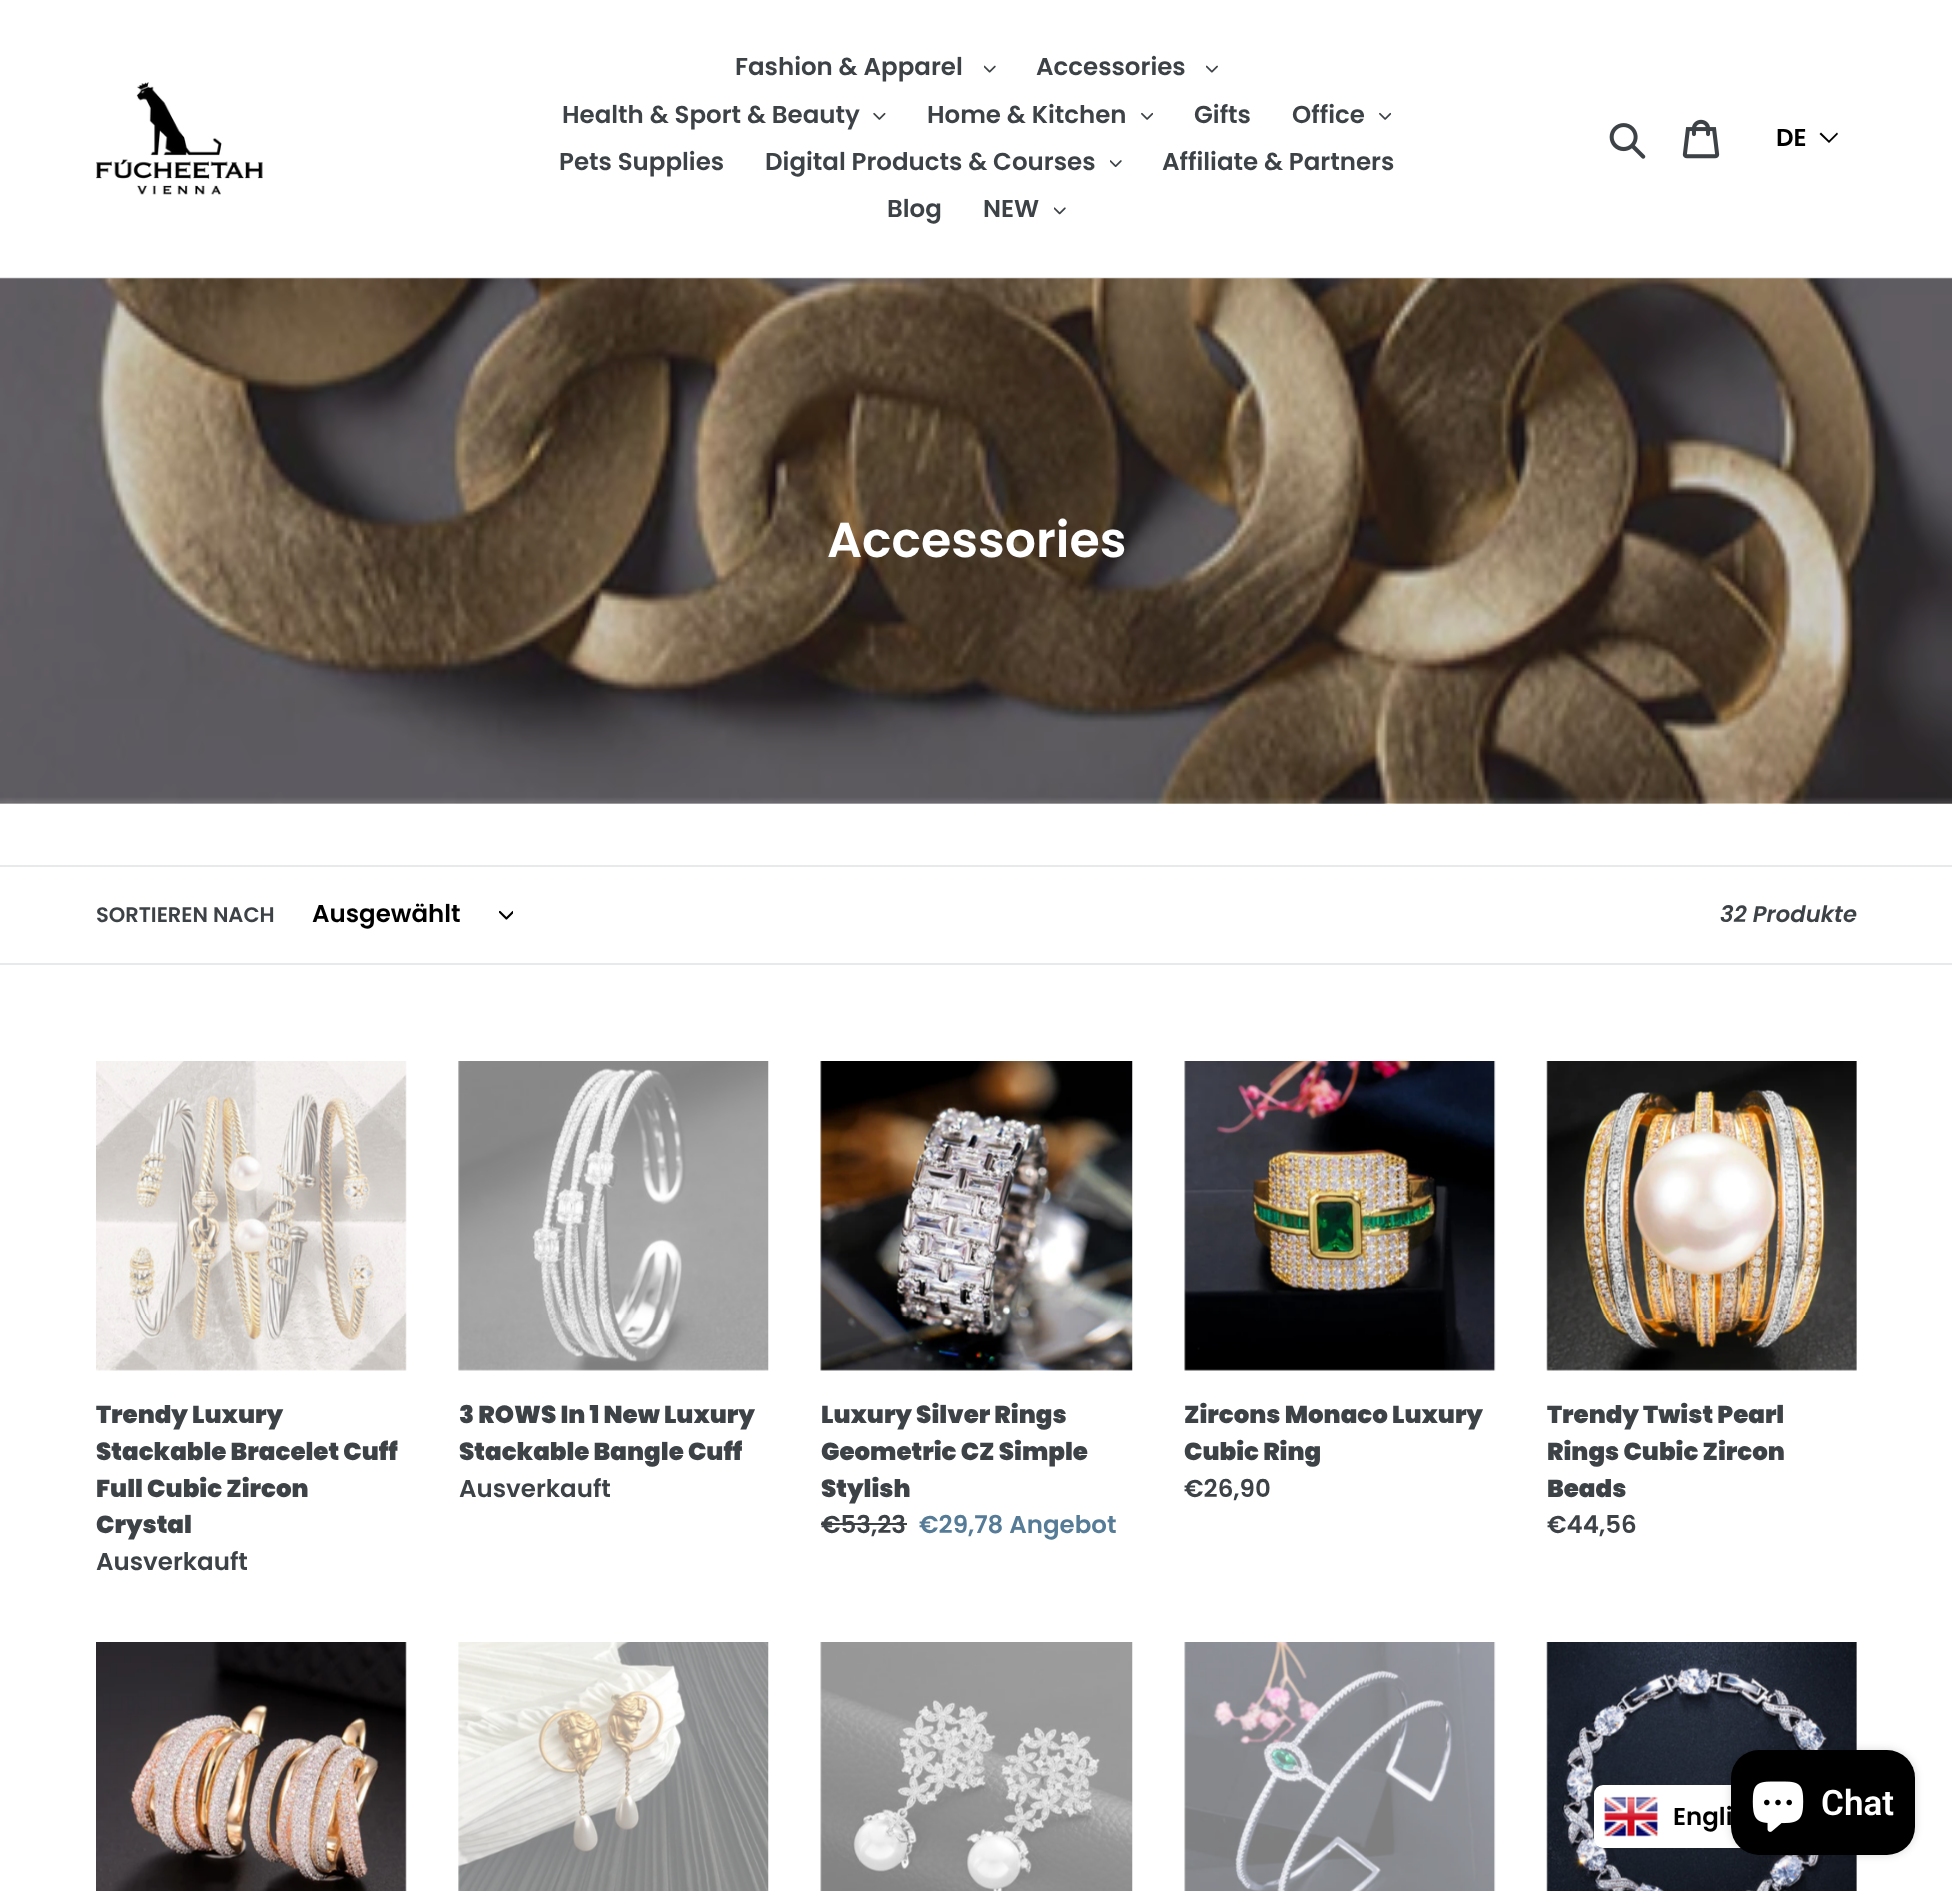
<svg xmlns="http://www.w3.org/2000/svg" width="1952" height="1891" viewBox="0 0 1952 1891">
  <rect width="100%" height="100%" fill="#fff"/>
  <path d="M0 277h1952v2H0z" fill="#e8e9eb"/>
  <image x="96" y="82" width="167" height="113" href="img/1.png"/>
  <image x="984" y="65" width="12" height="8" href="img/2.png"/>
  <image x="1206" y="65" width="12" height="8" href="img/3.png"/>
  <image x="873" y="112" width="13" height="8" href="img/4.png"/>
  <image x="1141" y="112" width="12" height="8" href="img/5.png"/>
  <image x="1379" y="112" width="12" height="8" href="img/5.png"/>
  <image x="1110" y="160" width="12" height="8" href="img/6.png"/>
  <image x="1054" y="207" width="12" height="8" href="img/7.png"/>
  <image x="1609" y="123" width="37" height="36" href="img/8.png"/>
  <image x="1682" y="119" width="38" height="40" href="img/9.png"/>
  <path d="M1829 143L1819.5 134L1821 132.5L1829 140.5L1837 132.5L1838 134Z" fill="#000"/>
  <image x="0" y="278" width="1952" height="526" href="img/10.png"/>
  <path d="M0 865h1952v2H0z" fill="#e8e9eb"/>
  <path d="M0 963h1952v2H0z" fill="#e8e9eb"/>
  <image x="499" y="910" width="14" height="10" href="img/11.png"/>
  <image x="96" y="1061" width="311" height="310" href="img/12.png"/>
  <image x="458" y="1061" width="311" height="310" href="img/13.png"/>
  <image x="820" y="1061" width="313" height="310" href="img/14.png"/>
  <path d="M821 1523h86v2H821z" fill="#3d4246"/>
  <image x="1184" y="1061" width="312" height="310" href="img/15.png"/>
  <image x="1546" y="1061" width="311" height="310" href="img/16.png"/>
  <image x="96" y="1642" width="311" height="249" href="img/17.png"/>
  <image x="458" y="1642" width="311" height="249" href="img/18.png"/>
  <image x="820" y="1642" width="313" height="249" href="img/19.png"/>
  <image x="1184" y="1642" width="312" height="249" href="img/20.png"/>
  <image x="1546" y="1642" width="311" height="249" href="img/21.png"/>
  <rect x="1594" y="1785" width="315" height="63" rx="9" fill="#fff"/>
  <image x="1604" y="1796" width="54" height="41" href="img/22.png"/>
  <rect x="1731" y="1750" width="184" height="105" rx="28" fill="#00000026" filter="blur(4.5px)"/>
  <rect x="1731" y="1750" width="184" height="105" rx="28" fill="#000"/>
  <image x="1752" y="1781" width="52" height="51" href="img/23.png"/>
  <g font-family="Poppins" font-size="24.5" font-weight="600" fill="#3d4246">
    <text x="735" y="75">Fashion &amp; Apparel</text>
    <text x="1036" y="75">Accessories</text>
    <text x="562" y="123">Health &amp; Sport &amp; Beauty</text>
    <text x="927" y="123">Home &amp; Kitchen</text>
    <text x="1194" y="123">Gifts</text>
    <text x="1292" y="123">Office</text>
    <text x="559" y="170">Pets Supplies</text>
    <text x="765" y="170">Digital Products &amp; Courses</text>
    <text x="1162" y="170">Affiliate &amp; Partners</text>
    <text x="887" y="217">Blog</text>
    <text x="983" y="217">NEW</text>
  </g>
  <text x="1776" y="146" font-family="Poppins" font-size="24.5" font-weight="600" fill="#000">DE</text>
  <text x="827" y="557" font-family="Poppins" font-size="49" font-weight="600" fill="#fff">Accessories</text>
  <text x="96" y="922" font-family="Poppins" font-size="21" font-weight="600" fill="#3d4246">SORTIEREN NACH</text>
  <text x="312" y="922" font-family="Poppins" font-size="24.5" font-weight="600" fill="#000">Ausgewählt</text>
  <text x="1720" y="922" font-family="Poppins" font-size="22.75" font-weight="600" font-style="italic" fill="#3d4246">32 Produkte</text>
  <g font-family="Poppins" font-size="24.5" font-weight="900" fill="#3d4246">
    <text x="96" y="1423">Trendy Luxury</text>
    <text x="96" y="1460">Stackable Bracelet Cuff</text>
    <text x="96" y="1497">Full Cubic Zircon</text>
    <text x="96" y="1533">Crystal</text>
  </g>
  <text x="96" y="1570" font-family="Poppins" font-size="24.5" font-weight="600" fill="#3d4246">Ausverkauft</text>
  <g font-family="Poppins" font-size="24.5" font-weight="900" fill="#3d4246">
    <text x="459" y="1423">3 ROWS In 1 New Luxury</text>
    <text x="459" y="1460">Stackable Bangle Cuff</text>
  </g>
  <text x="459" y="1497" font-family="Poppins" font-size="24.5" font-weight="600" fill="#3d4246">Ausverkauft</text>
  <g font-family="Poppins" font-size="24.5" font-weight="900" fill="#3d4246">
    <text x="821" y="1423">Luxury Silver Rings</text>
    <text x="821" y="1460">Geometric CZ Simple</text>
    <text x="821" y="1497">Stylish</text>
  </g>
  <text x="821" y="1533" font-family="Poppins" font-size="24.5" font-weight="600" fill="#3d4246">€53,23</text>
  <text x="919" y="1533" font-family="Poppins" font-size="24.5" font-weight="600" fill="#557b97">€29,78 Angebot</text>
  <g font-family="Poppins" font-size="24.5" font-weight="900" fill="#3d4246">
    <text x="1184" y="1423">Zircons Monaco Luxury</text>
    <text x="1184" y="1460">Cubic Ring</text>
  </g>
  <text x="1184" y="1497" font-family="Poppins" font-size="24.5" font-weight="600" fill="#3d4246">€26,90</text>
  <g font-family="Poppins" font-size="24.5" font-weight="900" fill="#3d4246">
    <text x="1547" y="1423">Trendy Twist Pearl</text>
    <text x="1547" y="1460">Rings Cubic Zircon</text>
    <text x="1547" y="1497">Beads</text>
  </g>
  <text x="1547" y="1533" font-family="Poppins" font-size="24.5" font-weight="600" fill="#3d4246">€44,56</text>
  <text x="1673" y="1825" font-family="Poppins" font-size="24.5" font-weight="600" fill="#000">Engli</text>
  <text x="1821" y="1815" font-family="Roboto" font-size="35" font-weight="600" fill="#fff">Chat</text>
</svg>
